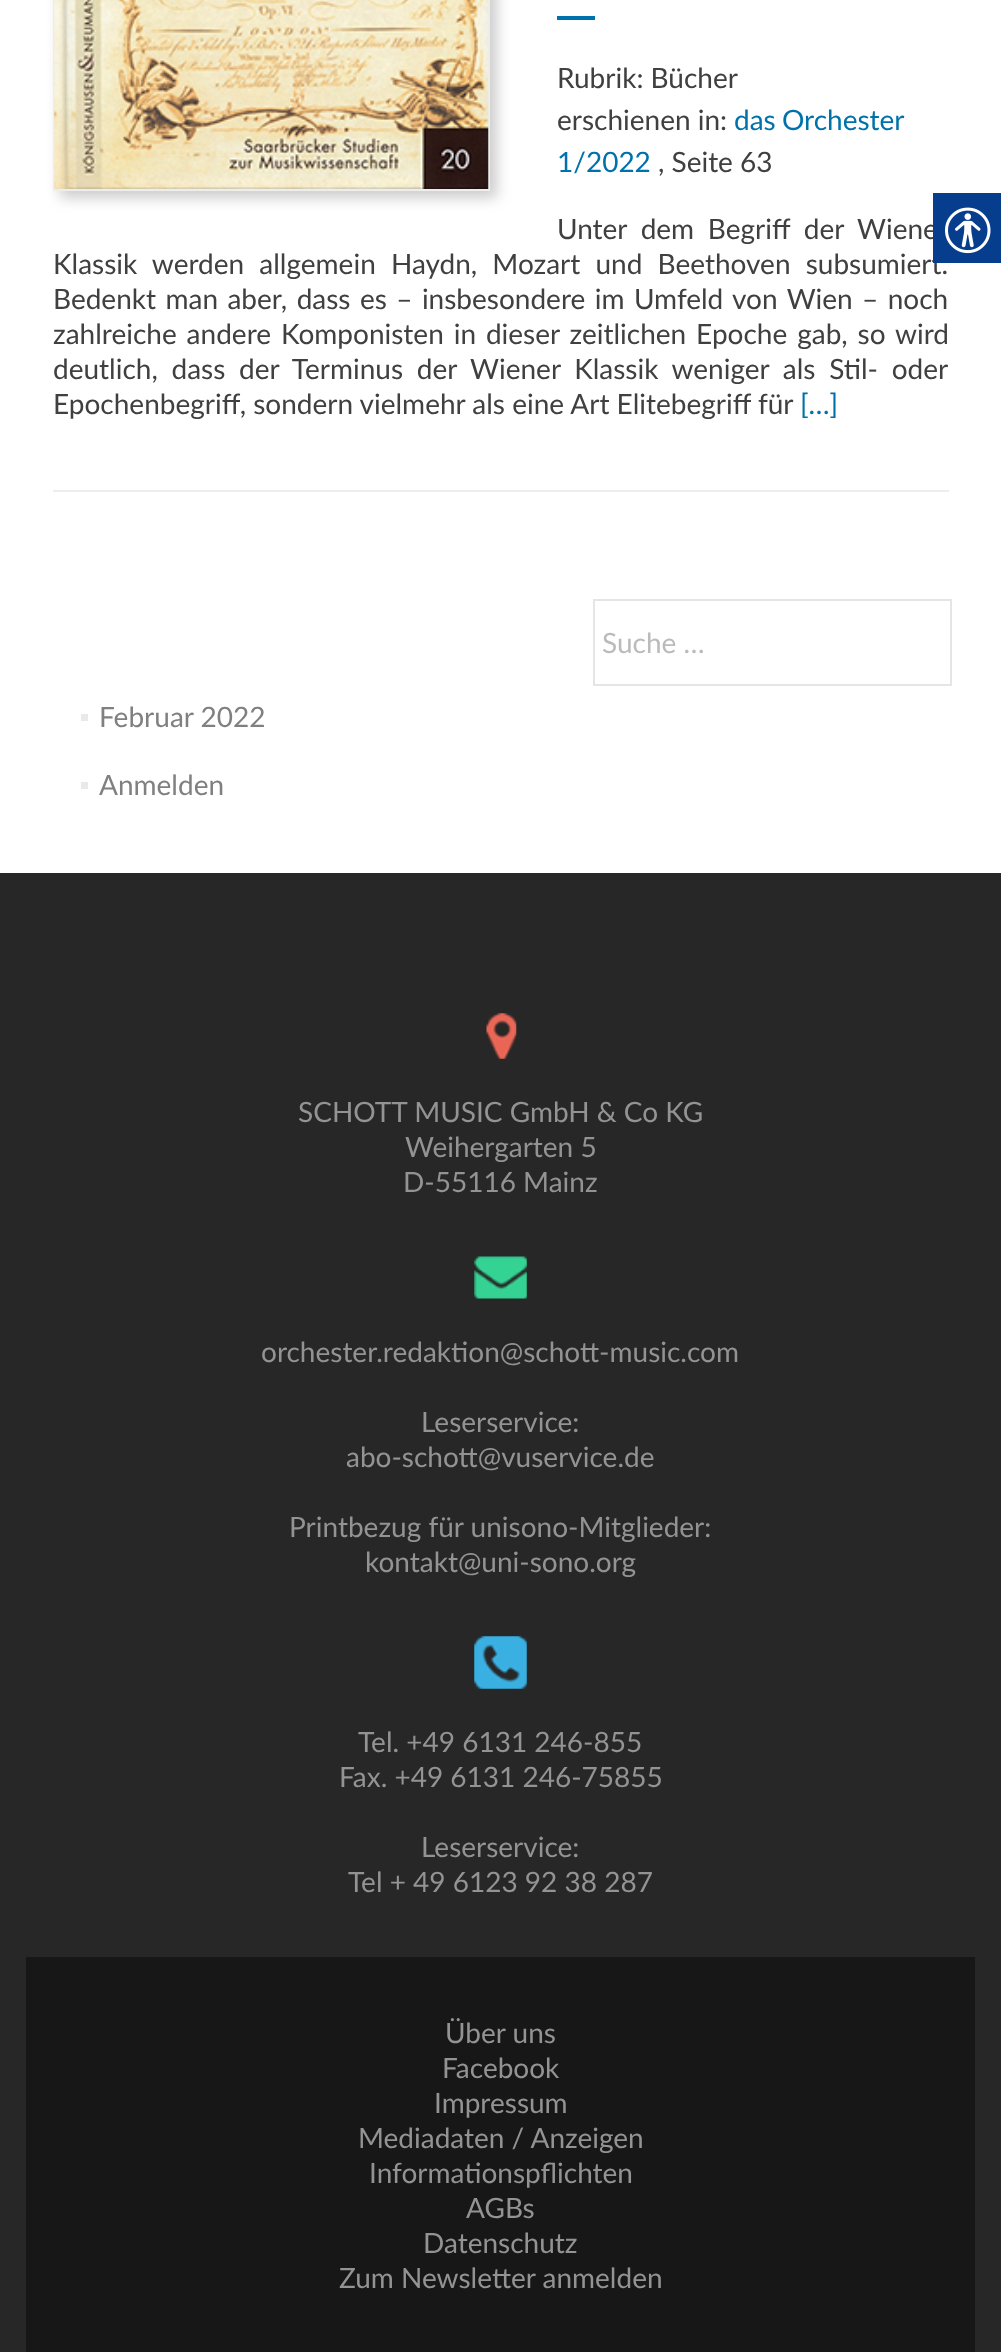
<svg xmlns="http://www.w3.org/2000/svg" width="1001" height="2352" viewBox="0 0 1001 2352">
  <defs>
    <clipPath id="clip1"><path d="M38 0H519V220H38ZM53-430H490V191H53Z" clip-rule="evenodd"/></clipPath>
  </defs>
  <rect width="100%" height="100%" fill="#fff"/>
  <path d="M53 490h896v2H53z" fill="#ededed"/>
  <g clip-path="url(#clip1)">
    <path d="M60 -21h437v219H60z" fill="#64646454" filter="blur(7px)"/>
  </g>
  <path d="M54 -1h435v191H54z" fill="none" stroke="#c8c8c854" stroke-width="2"/>
  <image x="54" y="0" width="435" height="189" href="img/1.png"/>
  <path d="M557 16h38v4H557z" fill="#0072ab"/>
  <path d="M594 600h357v85H594z" fill="none" stroke="#e5e5e5" stroke-width="2"/>
  <path d="M81 714h7v7H81z" fill="#e9e9e9"/>
  <path d="M81 782h7v7H81z" fill="#e9e9e9"/>
  <path d="M0 873h1001v1479H0z" fill="#272727"/>
  <image x="486" y="1013" width="31" height="46" href="img/2.png"/>
  <image x="474" y="1256" width="53" height="43" href="img/3.png"/>
  <image x="474" y="1636" width="53" height="53" href="img/4.png"/>
  <path d="M26 1957h949v395H26z" fill="#171717"/>
  <g font-family="Lato" font-size="28" fill="#404040">
    <text x="557" y="88">Rubrik: Bücher</text>
    <text x="557" y="130">erschienen in:</text>
  </g>
  <g font-family="Lato" font-size="28" fill="#0072ab">
    <text x="734" y="130" word-spacing="-1">das Orchester</text>
    <text x="557" y="172">1/2022</text>
  </g>
  <g font-family="Lato" font-size="28" fill="#404040">
    <text x="658" y="172">, Seite 63</text>
    <text x="557" y="239" word-spacing="6.5">Unter dem Begriff der Wiene</text>
    <text x="53" y="274" word-spacing="8">Klassik werden allgemein Haydn, Mozart und Beethoven subsumiert.</text>
    <text x="53" y="309" word-spacing="2.25">Bedenkt man aber, dass es – insbesondere im Umfeld von Wien – noch</text>
    <text x="53" y="344" word-spacing="2.75">zahlreiche andere Komponisten in dieser zeitlichen Epoche gab, so wird</text>
    <text x="53" y="379" word-spacing="6.5">deutlich, dass der Terminus der Wiener Klassik weniger als Stil- oder</text>
    <text x="53" y="414">Epochenbegriff, sondern vielmehr als eine Art Elitebegriff für</text>
  </g>
  <text x="800" y="414" font-family="Lato" font-size="28" fill="#0072ab">[…]</text>
  <text x="602" y="653" font-family="Lato" font-size="28" fill="#bbb">Suche …</text>
  <g font-family="Lato" font-size="28" fill="#808080">
    <text x="99" y="727">Februar 2022</text>
    <text x="99" y="795">Anmelden</text>
  </g>
  <g font-family="Lato" font-size="28" fill="#939393">
    <text x="298" y="1122">SCHOTT MUSIC GmbH &amp; Co KG</text>
    <text x="405" y="1157">Weihergarten 5</text>
    <text x="403" y="1192">D-55116 Mainz</text>
    <text x="261" y="1362">orchester.redaktion@schott-music.com</text>
    <text x="421" y="1432">Leserservice:</text>
    <text x="346" y="1467">abo-schott@vuservice.de</text>
    <text x="289" y="1537">Printbezug für unisono-Mitglieder:</text>
    <text x="365" y="1572">kontakt@uni-sono.org</text>
    <text x="358" y="1752">Tel. +49 6131 246-855</text>
    <text x="339" y="1787">Fax. +49 6131 246-75855</text>
    <text x="421" y="1857">Leserservice:</text>
    <text x="348" y="1892">Tel + 49 6123 92 38 287</text>
    <text x="445" y="2043">Über uns</text>
    <text x="442" y="2078">Facebook</text>
    <text x="434" y="2113">Impressum</text>
    <text x="358" y="2148">Mediadaten / Anzeigen</text>
    <text x="369" y="2183">Informationspflichten</text>
    <text x="466" y="2218">AGBs</text>
    <text x="423" y="2253">Datenschutz</text>
    <text x="339" y="2288">Zum Newsletter anmelden</text>
  </g>
  <path d="M933 193h68v70H933z" fill="#063d8d"/>
  <image x="945" y="207" width="46" height="47" href="img/5.png"/>
</svg>
